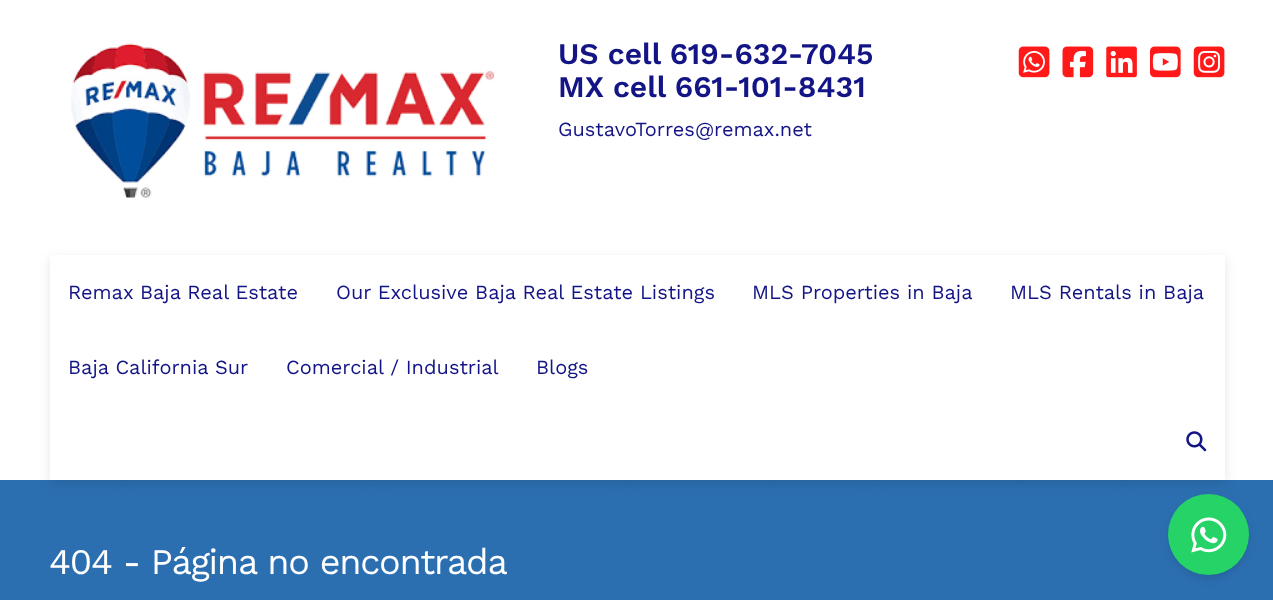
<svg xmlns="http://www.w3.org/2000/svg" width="1273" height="600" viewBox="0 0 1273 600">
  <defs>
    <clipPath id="clip1"><path d="M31 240H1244V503H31ZM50 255H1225V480H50Z" clip-rule="evenodd"/></clipPath>
  </defs>
  <rect width="100%" height="100%" fill="#f6f7fa"/>
  <image x="14" y="480" width="1259" height="120" href="img/1.png"/>
  <path d="M0 0h1273v480H0z" fill="#fff"/>
  <image x="71" y="43" width="424" height="155" href="img/2.png"/>
  <image x="1018" y="46" width="32" height="32" href="img/3.png"/>
  <image x="1062" y="46" width="32" height="32" href="img/4.png"/>
  <image x="1106" y="46" width="31" height="32" href="img/5.png"/>
  <image x="1150" y="46" width="31" height="32" href="img/6.png"/>
  <image x="1193" y="46" width="32" height="32" href="img/7.png"/>
  <path d="M0 480h1273v120H0z" fill="#0253a2d4"/>
  <g clip-path="url(#clip1)">
    <path d="M50 259h1175v225H50z" fill="#0000001a" filter="blur(6px)"/>
  </g>
  <image x="1186" y="431" width="21" height="21" href="img/8.png"/>
  <rect x="1168" y="498" width="81" height="81" rx="40.5" fill="#0000001a" filter="blur(4px)"/>
  <circle cx="1208.5" cy="534.5" r="40.5" fill="#25d366"/>
  <image x="1191" y="517" width="36" height="36" href="img/9.png"/>
  <g font-family="Work Sans" font-size="30" font-weight="600" fill="#131485">
    <text x="558" y="64">US cell 619-632-7045</text>
    <text x="558" y="97">MX cell 661-101-8431</text>
  </g>
  <g font-family="Work Sans" font-size="20" fill="#131485">
    <text x="558" y="136">GustavoTorres@remax.net</text>
    <text x="68" y="299">Remax Baja Real Estate</text>
    <text x="336" y="299">Our Exclusive Baja Real Estate Listings</text>
    <text x="752" y="299">MLS Properties in Baja</text>
    <text x="1010" y="299">MLS Rentals in Baja</text>
    <text x="68" y="374">Baja California Sur</text>
    <text x="286" y="374">Comercial / Industrial</text>
    <text x="536" y="374">Blogs</text>
  </g>
  <text x="49" y="574" font-family="Work Sans" font-size="36" letter-spacing="-1.25" fill="#fff">404 - Página no encontrada</text>
</svg>
